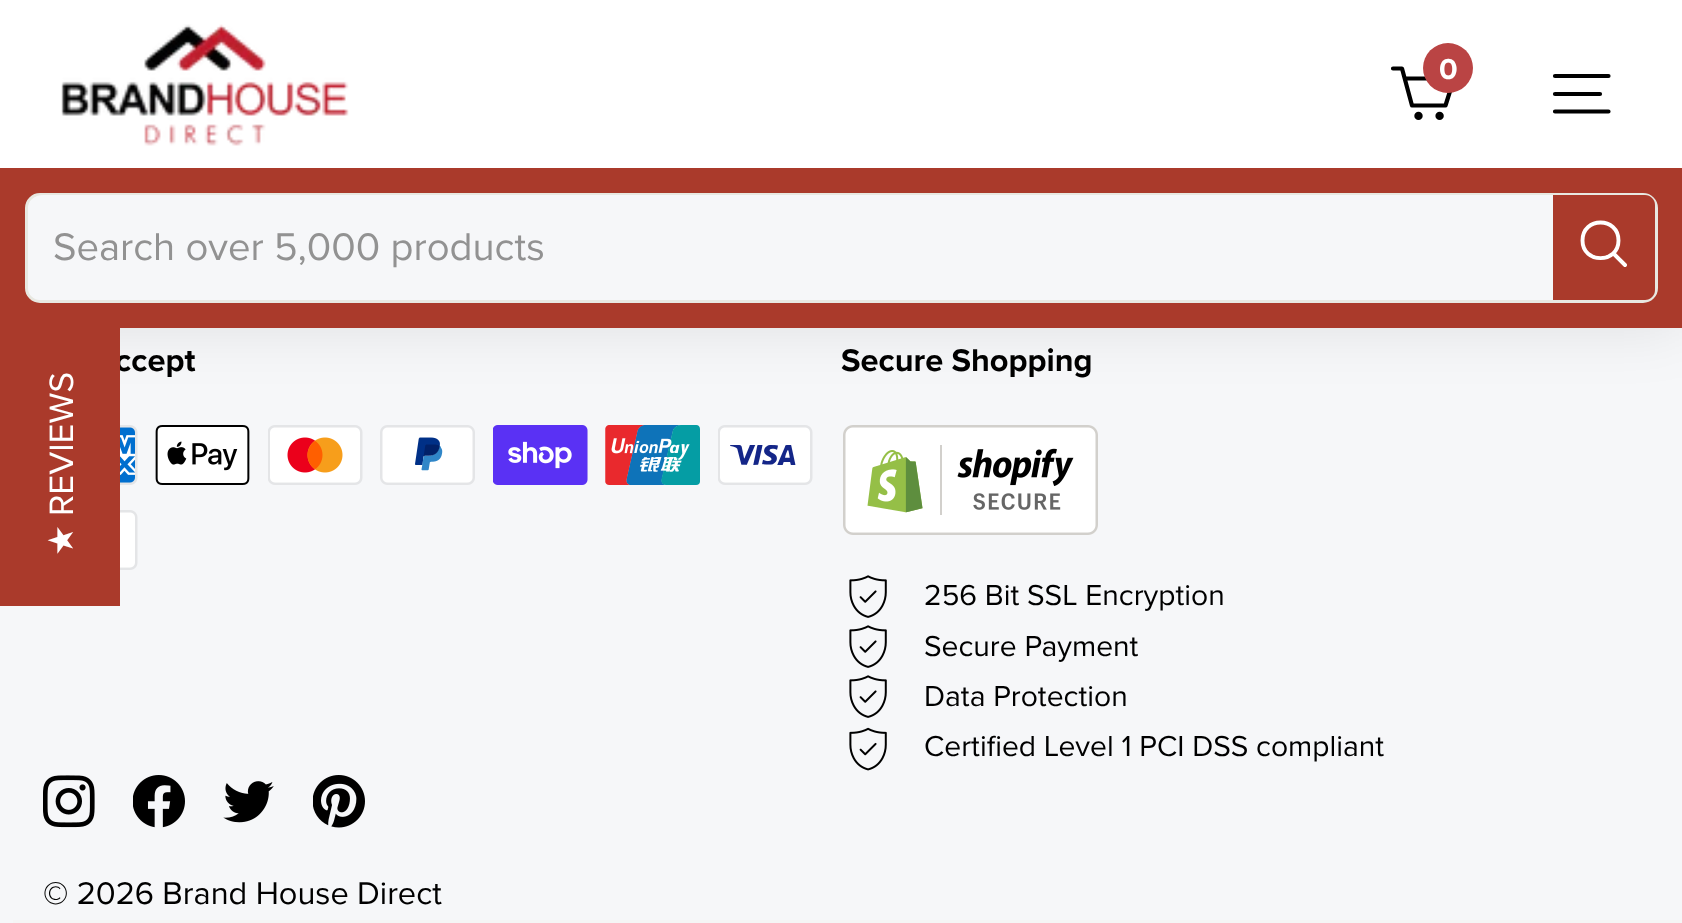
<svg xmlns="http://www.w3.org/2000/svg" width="1682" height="923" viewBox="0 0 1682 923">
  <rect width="100%" height="100%" fill="#f6f7f9"/>
  <path d="M0 0h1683v325H0z" fill="#0000001a" filter="blur(31px)"/>
  <path d="M0 0h1682v168H0z" fill="#fff"/>
  <image x="61" y="24" width="288" height="122" href="img/1.png"/>
  <path d="M1405 78.5H1454L1445.5 105.5H1412L1402 68.5H1393" fill="none" stroke="#000" stroke-width="4.2" stroke-linecap="round" stroke-linejoin="round"/>
  <circle cx="1448" cy="68" r="25" fill="#ba4444"/>
  <circle cx="1418.5" cy="115.9" r="2.1" fill="none" stroke="#000" stroke-width="4.2"/>
  <circle cx="1439.6" cy="115.9" r="2.1" fill="none" stroke="#000" stroke-width="4.2"/>
  <path d="M1555 76H1608.5M1555 94H1600M1555 111.5H1608.5" fill="none" stroke="#000" stroke-width="4.2" stroke-linecap="round" stroke-linejoin="round"/>
  <path d="M0 168h1682v160H0z" fill="#aa3a2b"/>
  <rect x="26.5" y="194.5" width="1630" height="107" rx="13.5" fill="#f6f7f9" stroke="#e8e8e1" stroke-width="3"/>
  <rect x="28" y="195" width="1627" height="105" rx="15" fill="#f6f7f9"/>
  <path d="M1553 195H1645C1650.5 195 1655 199.5 1655 205V290C1655 295.5 1650.5 300 1645 300H1553Z" fill="#aa3a2b"/>
  <path d="M1618.5 240.5C1618.5 264 1582.5 264 1582.5 240.5C1582.5 216.5 1618.5 216.5 1618.5 240.5ZM1625 265L1613.5 253.5" fill="none" stroke="#fff" stroke-width="3.9" stroke-linecap="round" stroke-linejoin="round"/>
  <image x="120" y="425" width="18" height="60" href="img/2.png"/>
  <image x="155" y="425" width="95" height="60" href="img/3.png"/>
  <image x="268" y="425" width="95" height="60" href="img/4.png"/>
  <image x="380" y="425" width="95" height="60" href="img/5.png"/>
  <image x="493" y="425" width="95" height="60" href="img/6.png"/>
  <image x="605" y="425" width="95" height="60" href="img/7.png"/>
  <image x="718" y="425" width="95" height="60" href="img/8.png"/>
  <image x="120" y="510" width="18" height="60" href="img/9.png"/>
  <image x="843" y="425" width="255" height="110" href="img/10.png"/>
  <image x="849" y="575" width="38" height="43" href="img/11.png"/>
  <image x="849" y="625" width="38" height="43" href="img/11.png"/>
  <image x="849" y="675" width="38" height="43" href="img/11.png"/>
  <image x="849" y="727" width="38" height="44" href="img/12.png"/>
  <image x="43" y="775" width="52" height="53" href="img/13.png"/>
  <image x="133" y="775" width="52" height="53" href="img/14.png"/>
  <image x="223" y="781" width="51" height="42" href="img/15.png"/>
  <image x="313" y="775" width="52" height="53" href="img/16.png"/>
  <path d="M13 920h1669v3H13z" fill="#f5f5f5"/>
  <text x="1439" y="79" font-family="Proxima Nova" font-size="30" font-weight="bold" fill="#fff">0</text>
  <text x="53" y="260" font-family="Proxima Nova" font-size="40" fill="#929292">Search over 5,000 products</text>
  <g font-family="Proxima Nova" font-size="32.5" font-weight="bold" fill="#000">
    <text x="115" y="371">ccept</text>
    <text x="841" y="371">Secure Shopping</text>
  </g>
  <g font-family="Proxima Nova" font-size="30" fill="#000">
    <text x="924" y="605">256 Bit SSL Encryption</text>
    <text x="924" y="656">Secure Payment</text>
    <text x="924" y="706">Data Protection</text>
    <text x="924" y="756">Certified Level 1 PCI DSS compliant</text>
  </g>
  <text x="43" y="904" font-family="Proxima Nova" font-size="32.5" fill="#000">© 2026 Brand House Direct</text>
  <path d="M0 328h120v278H0z" fill="#aa3a2b"/>
  <text x="73" y="516" transform="rotate(-90 73 516)" font-family="Proxima Nova" font-size="35" fill="#fff">REVIEWS</text>
  <text x="73" y="556" transform="rotate(-90 73 556)" font-family="DejaVu Sans" font-size="35" fill="#fff">★</text>
</svg>
